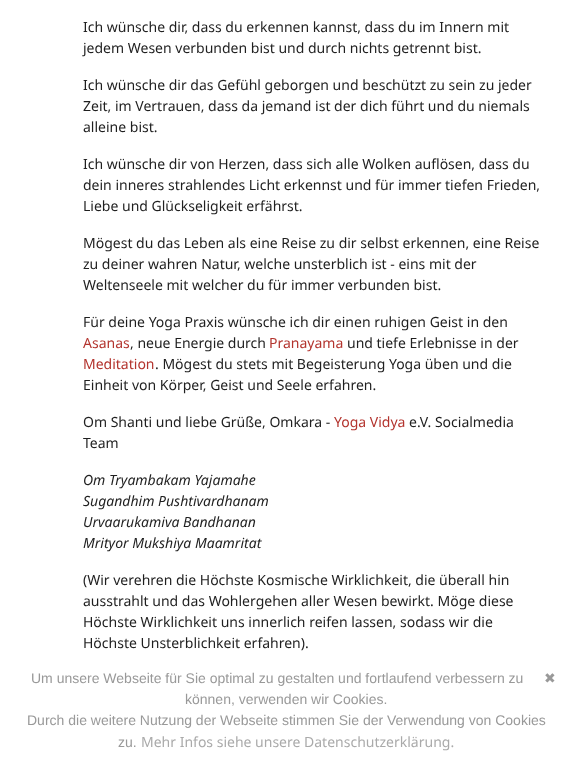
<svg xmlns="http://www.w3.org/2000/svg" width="572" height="758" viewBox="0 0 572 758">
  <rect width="100%" height="100%" fill="#fff"/>
  <g font-family="Noto Sans" font-size="14" fill="#1f1f1f">
    <text x="83" y="32">Ich wünsche dir, dass du erkennen kannst, dass du im Innern mit</text>
    <text x="83" y="53">jedem Wesen verbunden bist und durch nichts getrennt bist.</text>
    <text x="83" y="90">Ich wünsche dir das Gefühl geborgen und beschützt zu sein zu jeder</text>
    <text x="83" y="111">Zeit, im Vertrauen, dass da jemand ist der dich führt und du niemals</text>
    <text x="83" y="132">alleine bist.</text>
    <text x="83" y="169">Ich wünsche dir von Herzen, dass sich alle Wolken auflösen, dass du</text>
    <text x="83" y="190">dein inneres strahlendes Licht erkennst und für immer tiefen Frieden,</text>
    <text x="83" y="211">Liebe und Glückseligkeit erfährst.</text>
    <text x="83" y="248">Mögest du das Leben als eine Reise zu dir selbst erkennen, eine Reise</text>
    <text x="83" y="269">zu deiner wahren Natur, welche unsterblich ist - eins mit der</text>
    <text x="83" y="290">Weltenseele mit welcher du für immer verbunden bist.</text>
    <text x="83" y="327">Für deine Yoga Praxis wünsche ich dir einen ruhigen Geist in den</text>
  </g>
  <text x="83" y="348" font-family="Noto Sans" font-size="14" fill="#b3342e">Asanas</text>
  <text x="130" y="348" font-family="Noto Sans" font-size="14" fill="#1f1f1f">, neue Energie durch</text>
  <text x="269" y="348" font-family="Noto Sans" font-size="14" fill="#b3342e">Pranayama</text>
  <text x="347" y="348" font-family="Noto Sans" font-size="14" fill="#1f1f1f">und tiefe Erlebnisse in der</text>
  <text x="83" y="369" font-family="Noto Sans" font-size="14" fill="#b3342e">Meditation</text>
  <g font-family="Noto Sans" font-size="14" fill="#1f1f1f">
    <text x="155" y="369">. Mögest du stets mit Begeisterung Yoga üben und die</text>
    <text x="83" y="390">Einheit von Körper, Geist und Seele erfahren.</text>
    <text x="83" y="427">Om Shanti und liebe Grüße, Omkara -</text>
  </g>
  <text x="334" y="427" font-family="Noto Sans" font-size="14" fill="#b3342e">Yoga Vidya</text>
  <g font-family="Noto Sans" font-size="14" fill="#1f1f1f">
    <text x="409" y="427">e.V. Socialmedia</text>
    <text x="83" y="448">Team</text>
  </g>
  <g font-family="Noto Sans" font-size="14" font-style="italic" fill="#1f1f1f">
    <text x="83" y="485">Om Tryambakam Yajamahe</text>
    <text x="83" y="506">Sugandhim Pushtivardhanam</text>
    <text x="83" y="527">Urvaarukamiva Bandhanan</text>
    <text x="83" y="548">Mrityor Mukshiya Maamritat</text>
  </g>
  <g font-family="Noto Sans" font-size="14" fill="#1f1f1f">
    <text x="83" y="585">(Wir verehren die Höchste Kosmische Wirklichkeit, die überall hin</text>
    <text x="83" y="606">ausstrahlt und das Wohlergehen aller Wesen bewirkt. Möge diese</text>
    <text x="83" y="627">Höchste Wirklichkeit uns innerlich reifen lassen, sodass wir die</text>
    <text x="83" y="648">Höchste Unsterblichkeit erfahren).</text>
  </g>
  <text x="31" y="683" font-family="Liberation Sans" font-size="14" fill="#999">Um unsere Webseite für Sie optimal zu gestalten und fortlaufend verbessern zu</text>
  <text x="544" y="683" font-family="DejaVu Sans" font-size="14" fill="#999">✖</text>
  <g font-family="Liberation Sans" font-size="14" fill="#999">
    <text x="185" y="704">können, verwenden wir Cookies.</text>
    <text x="27" y="725">Durch die weitere Nutzung der Webseite stimmen Sie der Verwendung von Cookies</text>
    <text x="118" y="747">zu.</text>
  </g>
  <text x="141" y="747" font-family="Noto Sans" font-size="14" fill="#aaa">Mehr Infos siehe unsere Datenschutzerklärung.</text>
</svg>
